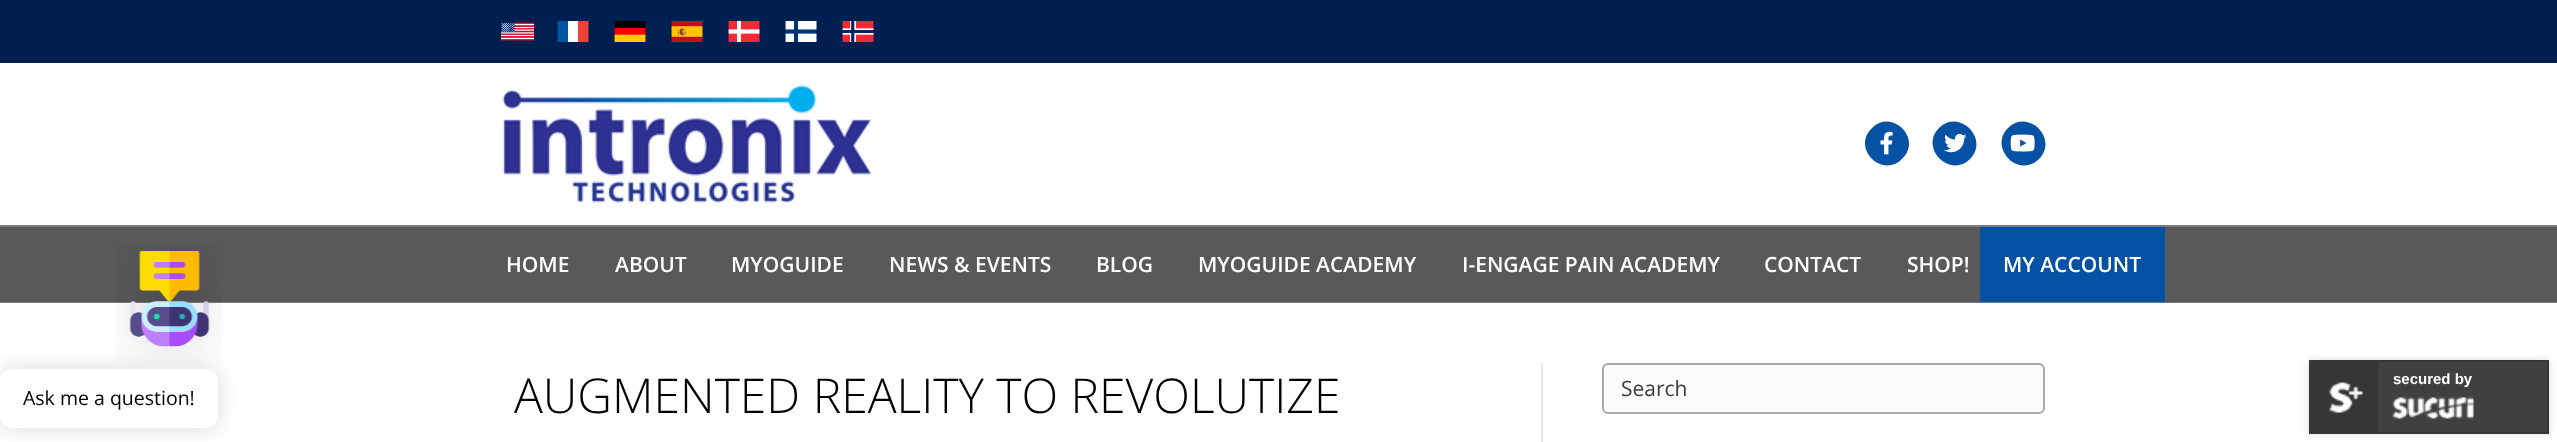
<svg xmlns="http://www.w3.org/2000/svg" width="2557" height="442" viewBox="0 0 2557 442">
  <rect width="100%" height="100%" fill="#001f51"/>
  <image x="501" y="22" width="33" height="19" href="img/1.png"/>
  <image x="557" y="21" width="32" height="21" href="img/2.png"/>
  <image x="614" y="21" width="32" height="21" href="img/3.png"/>
  <image x="671" y="21" width="32" height="21" href="img/4.png"/>
  <image x="728" y="21" width="32" height="21" href="img/5.png"/>
  <image x="785" y="21" width="32" height="21" href="img/6.png"/>
  <image x="842" y="21" width="32" height="21" href="img/7.png"/>
  <path d="M0 63h2557v162H0z" fill="#fff"/>
  <image x="500" y="85" width="375" height="118" href="img/8.png"/>
  <path d="M1872 128C1892 108 1923 139 1902 159C1882 179 1851 148 1872 128Z" fill="#0551a4"/>
  <image x="1880" y="131" width="13" height="24" href="img/9.png"/>
  <path d="M1939 128C1959 108 1990 139 1970 159C1950 179 1919 148 1939 128Z" fill="#0551a4"/>
  <image x="1944" y="133" width="23" height="20" href="img/10.png"/>
  <path d="M2008 128C2028 108 2059 139 2039 159C2019 179 1988 148 2008 128Z" fill="#0551a4"/>
  <image x="2010" y="134" width="25" height="18" href="img/11.png"/>
  <path d="M0 227h2557v75H0z" fill="#595959"/>
  <path d="M0 225h2557v2H0z" fill="#7a7a7a"/>
  <path d="M0 302h2557v1H0z" fill="#7a7a7a"/>
  <path d="M1980 227h185v75H1980z" fill="#0551a4"/>
  <path d="M0 303h2557v139H0z" fill="#fff"/>
  <path d="M1541 363h2v79H1541z" fill="#e6e6e6"/>
  <rect x="1603" y="364" width="441" height="49" rx="5" fill="#fcfcfc" stroke="#aaa" stroke-width="2"/>
  <path d="M2309 360h240v74H2309z" fill="#00000024" filter="blur(4.5px)"/>
  <path d="M2378 362h169v70H2378z" fill="#404040"/>
  <path d="M2310 361h238v72H2310z" fill="none" stroke="#363636" stroke-width="2"/>
  <path d="M2311 362h67v70H2311z" fill="#363636"/>
  <image x="2329" y="382" width="34" height="31" href="img/12.png"/>
  <image x="2392" y="397" width="82" height="22" href="img/13.png"/>
  <image x="116" y="244" width="107" height="121" href="img/14.png"/>
  <rect y="369" width="218" height="59" rx="12" fill="#00000026" filter="blur(11px)"/>
  <rect y="369" width="218" height="59" rx="12" fill="#fff"/>
  <g font-family="Open Sans" font-size="21" font-weight="600" fill="#fff">
    <text x="506" y="272">HOME</text>
    <text x="615" y="272">ABOUT</text>
    <text x="731" y="272">MYOGUIDE</text>
    <text x="889" y="272">NEWS &amp; EVENTS</text>
    <text x="1096" y="272">BLOG</text>
    <text x="1198" y="272">MYOGUIDE ACADEMY</text>
    <text x="1462" y="272">I-ENGAGE PAIN ACADEMY</text>
    <text x="1764" y="272">CONTACT</text>
    <text x="1907" y="272">SHOP!</text>
    <text x="2003" y="272">MY ACCOUNT</text>
  </g>
  <text x="514" y="413" font-family="Open Sans" font-size="48" font-weight="300" fill="#000">AUGMENTED REALITY TO REVOLUTIZE</text>
  <text x="1621" y="396" font-family="Open Sans" font-size="21" fill="#3b3b3b">Search</text>
  <text x="2393" y="384" font-family="Liberation Sans" font-size="15" font-weight="bold" fill="#fff">secured by</text>
  <text x="23" y="405" font-family="Open Sans" font-size="19.5" fill="#000">Ask me a question!</text>
</svg>
